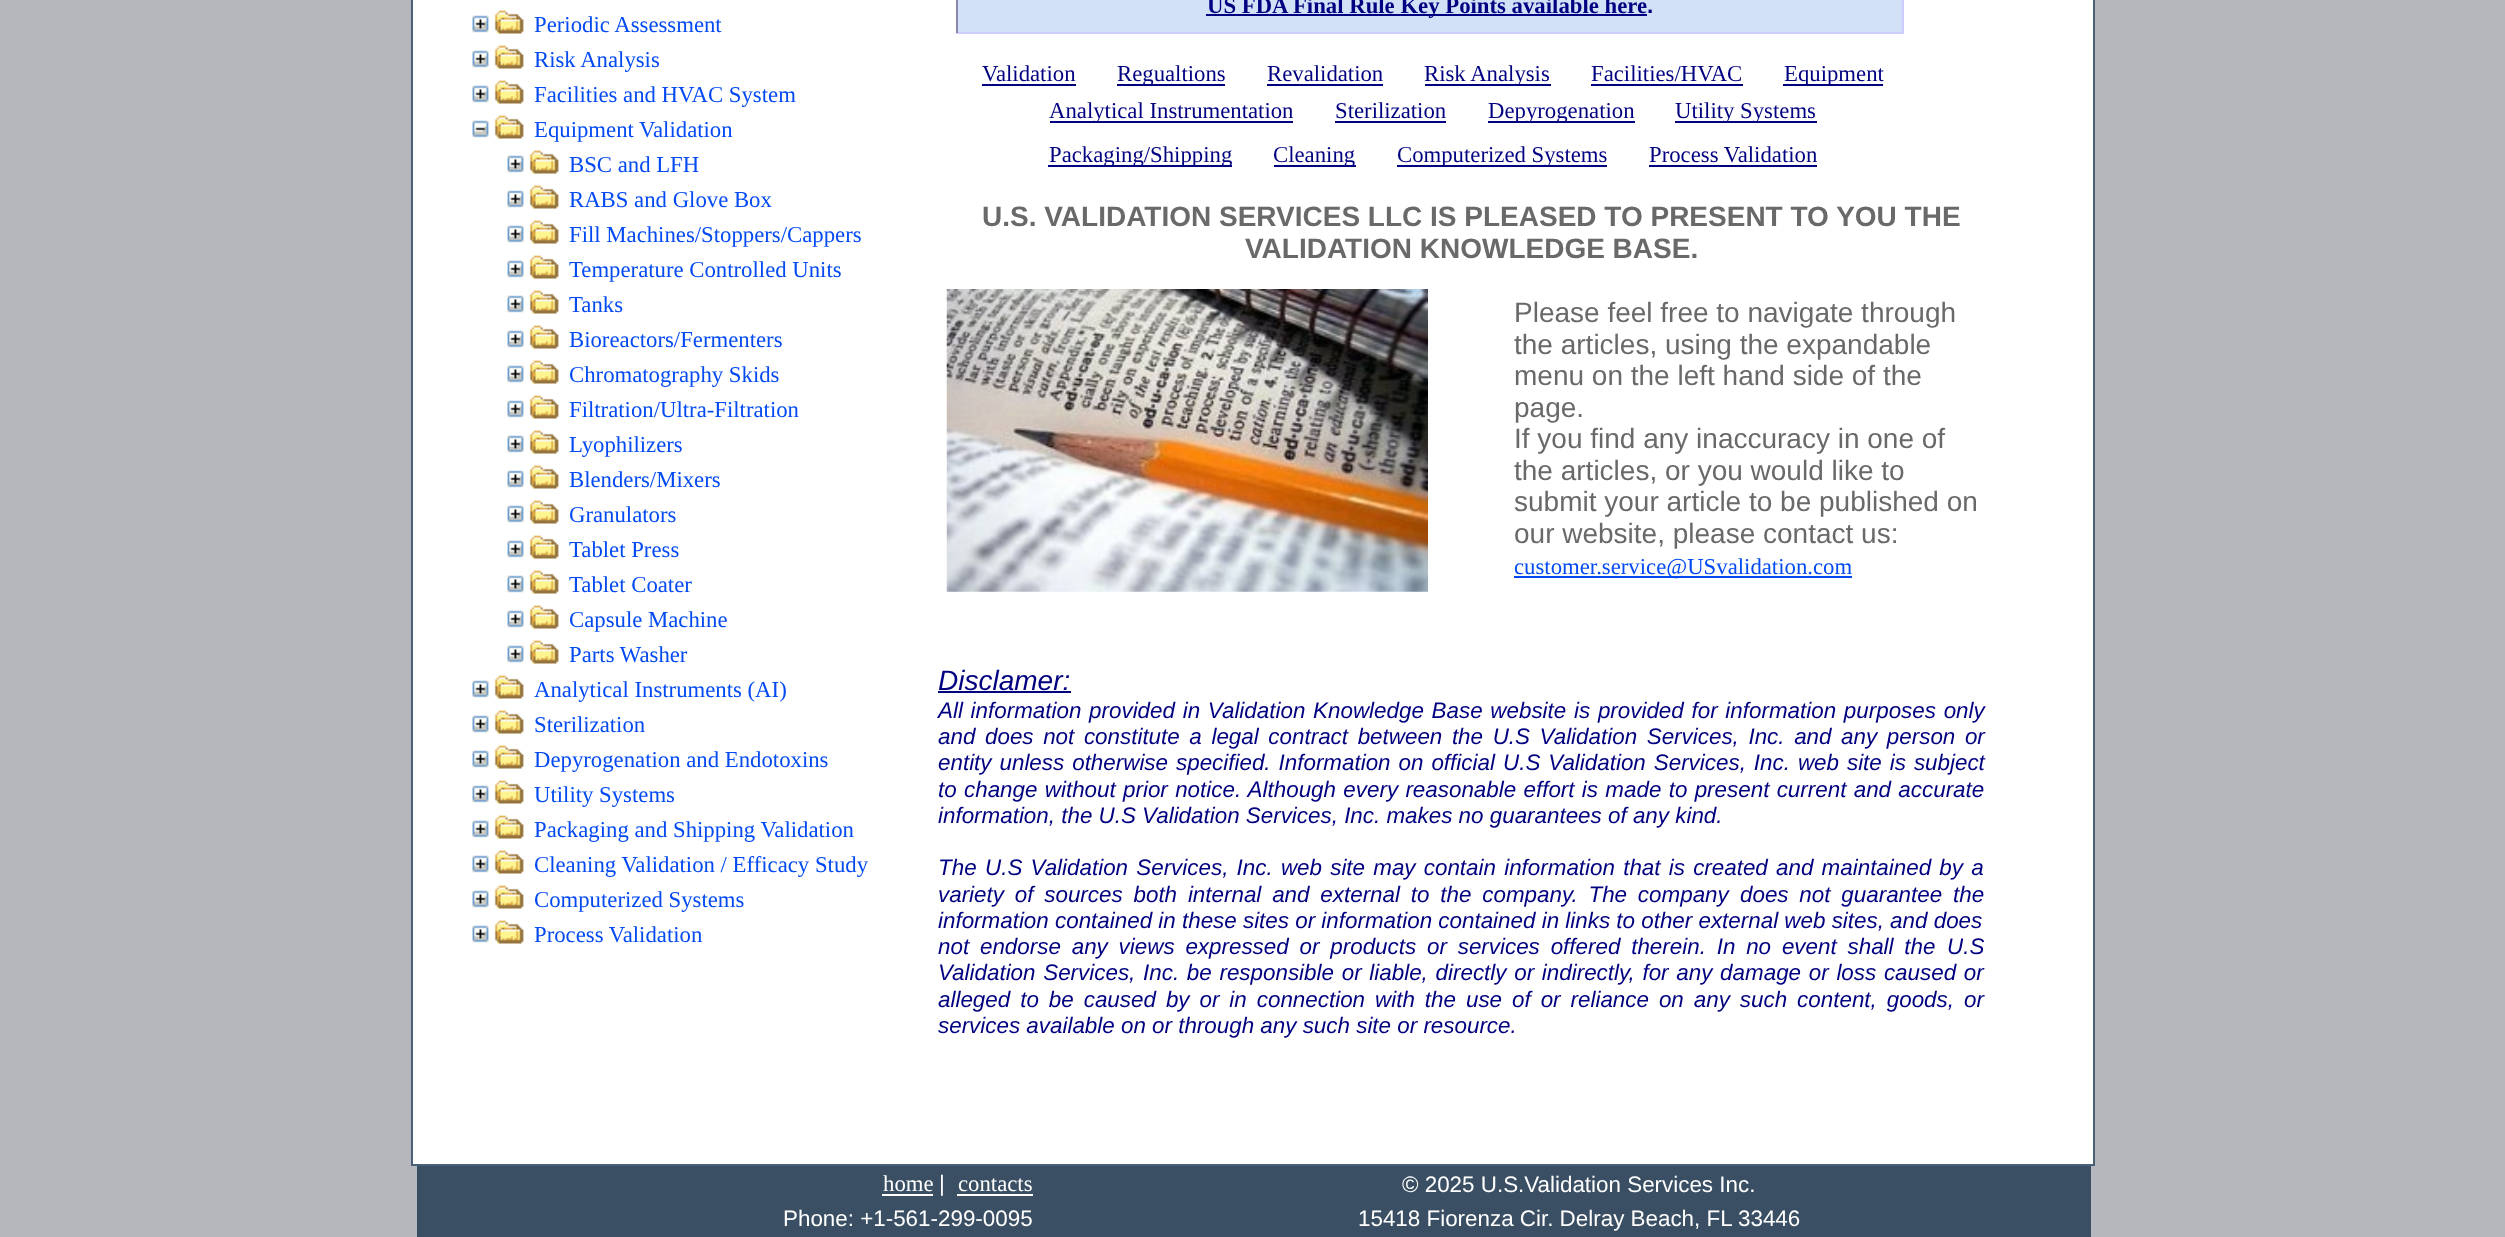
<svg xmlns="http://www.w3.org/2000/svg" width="2505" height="1237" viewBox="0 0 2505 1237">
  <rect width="100%" height="100%" fill="#b6b7bc"/>
  <path d="M412 -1h1682v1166H412z" fill="#fff" stroke="#496077" stroke-width="2"/>
  <image x="472" y="15" width="17" height="18" href="img/1.png"/>
  <image x="494" y="10" width="30" height="24" href="img/2.png"/>
  <image x="472" y="50" width="17" height="18" href="img/1.png"/>
  <image x="494" y="45" width="30" height="24" href="img/2.png"/>
  <image x="472" y="85" width="17" height="18" href="img/1.png"/>
  <image x="494" y="80" width="30" height="24" href="img/2.png"/>
  <image x="472" y="120" width="17" height="18" href="img/3.png"/>
  <image x="494" y="115" width="30" height="24" href="img/2.png"/>
  <image x="507" y="155" width="17" height="18" href="img/4.png"/>
  <image x="529" y="150" width="30" height="24" href="img/5.png"/>
  <image x="507" y="190" width="17" height="18" href="img/4.png"/>
  <image x="529" y="185" width="30" height="24" href="img/5.png"/>
  <image x="507" y="225" width="17" height="18" href="img/4.png"/>
  <image x="529" y="220" width="30" height="24" href="img/5.png"/>
  <image x="507" y="260" width="17" height="18" href="img/4.png"/>
  <image x="529" y="255" width="30" height="24" href="img/5.png"/>
  <image x="507" y="295" width="17" height="18" href="img/4.png"/>
  <image x="529" y="290" width="30" height="24" href="img/5.png"/>
  <image x="507" y="330" width="17" height="18" href="img/4.png"/>
  <image x="529" y="325" width="30" height="24" href="img/5.png"/>
  <image x="507" y="365" width="17" height="18" href="img/4.png"/>
  <image x="529" y="360" width="30" height="24" href="img/5.png"/>
  <image x="507" y="400" width="17" height="18" href="img/4.png"/>
  <image x="529" y="395" width="30" height="24" href="img/5.png"/>
  <image x="507" y="435" width="17" height="18" href="img/4.png"/>
  <image x="529" y="430" width="30" height="24" href="img/5.png"/>
  <image x="507" y="470" width="17" height="18" href="img/4.png"/>
  <image x="529" y="465" width="30" height="24" href="img/5.png"/>
  <image x="507" y="505" width="17" height="18" href="img/4.png"/>
  <image x="529" y="500" width="30" height="24" href="img/5.png"/>
  <image x="507" y="540" width="17" height="18" href="img/4.png"/>
  <image x="529" y="535" width="30" height="24" href="img/5.png"/>
  <image x="507" y="575" width="17" height="18" href="img/4.png"/>
  <image x="529" y="570" width="30" height="24" href="img/5.png"/>
  <image x="507" y="610" width="17" height="18" href="img/4.png"/>
  <image x="529" y="605" width="30" height="24" href="img/5.png"/>
  <image x="507" y="645" width="17" height="18" href="img/4.png"/>
  <image x="529" y="640" width="30" height="24" href="img/5.png"/>
  <image x="472" y="680" width="17" height="18" href="img/1.png"/>
  <image x="494" y="675" width="30" height="24" href="img/2.png"/>
  <image x="472" y="715" width="17" height="18" href="img/1.png"/>
  <image x="494" y="710" width="30" height="24" href="img/2.png"/>
  <image x="472" y="750" width="17" height="18" href="img/1.png"/>
  <image x="494" y="745" width="30" height="24" href="img/2.png"/>
  <image x="472" y="785" width="17" height="18" href="img/1.png"/>
  <image x="494" y="780" width="30" height="24" href="img/2.png"/>
  <image x="472" y="820" width="17" height="18" href="img/1.png"/>
  <image x="494" y="815" width="30" height="24" href="img/2.png"/>
  <image x="472" y="855" width="17" height="18" href="img/1.png"/>
  <image x="494" y="850" width="30" height="24" href="img/2.png"/>
  <image x="472" y="890" width="17" height="18" href="img/1.png"/>
  <image x="494" y="885" width="30" height="24" href="img/2.png"/>
  <image x="472" y="925" width="17" height="18" href="img/1.png"/>
  <image x="494" y="920" width="30" height="24" href="img/2.png"/>
  <path d="M958 0h944v32H958z" fill="#d2e1f7"/>
  <path d="M1902 0h2v33H1902z" fill="#ccf"/>
  <path d="M956 32h948v2H956z" fill="#ccf"/>
  <path d="M956 0h2v33H956z" fill="#88a"/>
  <path d="M1206 14h441v2H1206z" fill="#000080"/>
  <path d="M982 84h94v2H982z" fill="#000080"/>
  <path d="M1117 84h108v2H1117z" fill="#000080"/>
  <path d="M1267 84h116v2H1267z" fill="#000080"/>
  <path d="M1425 84h126v2H1425z" fill="#000080"/>
  <path d="M1591 84h152v2H1591z" fill="#000080"/>
  <path d="M1783 84h100v2H1783z" fill="#000080"/>
  <path d="M1050 121h243v2H1050z" fill="#000080"/>
  <path d="M1335 121h111v2H1335z" fill="#000080"/>
  <path d="M1488 121h147v2H1488z" fill="#000080"/>
  <path d="M1675 121h142v2H1675z" fill="#000080"/>
  <path d="M1048 165h184v2H1048z" fill="#000080"/>
  <path d="M1274 165h82v2H1274z" fill="#000080"/>
  <path d="M1397 165h210v2H1397z" fill="#000080"/>
  <path d="M1649 165h168v2H1649z" fill="#000080"/>
  <image x="946" y="289" width="482" height="303" href="img/6.png"/>
  <path d="M1514 576h338v2H1514z" fill="#034af3"/>
  <path d="M938 691h133v2H938z" fill="#000080"/>
  <path d="M417 1166h1674v71H417z" fill="#3a4f63"/>
  <path d="M882 1194h51v2H882z" fill="#fff"/>
  <path d="M957 1194h76v2H957z" fill="#fff"/>
  <g font-family="Liberation Serif" font-size="22.75" fill="#034af3">
    <text x="534" y="32">Periodic Assessment</text>
    <text x="534" y="67">Risk Analysis</text>
    <text x="534" y="102">Facilities and HVAC System</text>
    <text x="534" y="137">Equipment Validation</text>
    <text x="569" y="172">BSC and LFH</text>
    <text x="569" y="207">RABS and Glove Box</text>
    <text x="569" y="242">Fill Machines/Stoppers/Cappers</text>
    <text x="569" y="277">Temperature Controlled Units</text>
    <text x="569" y="312">Tanks</text>
    <text x="569" y="347">Bioreactors/Fermenters</text>
    <text x="569" y="382">Chromatography Skids</text>
    <text x="569" y="417">Filtration/Ultra-Filtration</text>
    <text x="569" y="452">Lyophilizers</text>
    <text x="569" y="487">Blenders/Mixers</text>
    <text x="569" y="522">Granulators</text>
    <text x="569" y="557">Tablet Press</text>
    <text x="569" y="592">Tablet Coater</text>
    <text x="569" y="627">Capsule Machine</text>
    <text x="569" y="662">Parts Washer</text>
    <text x="534" y="697">Analytical Instruments (AI)</text>
    <text x="534" y="732">Sterilization</text>
    <text x="534" y="767">Depyrogenation and Endotoxins</text>
    <text x="534" y="802">Utility Systems</text>
    <text x="534" y="837">Packaging and Shipping Validation</text>
    <text x="534" y="872">Cleaning Validation / Efficacy Study</text>
    <text x="534" y="907">Computerized Systems</text>
    <text x="534" y="942">Process Validation</text>
  </g>
  <text x="1207" y="13" font-family="Liberation Serif" font-size="22.75" font-weight="bold" fill="#000080">US FDA Final Rule Key Points available here</text>
  <text x="1647" y="13" font-family="Liberation Sans" font-size="22.75" font-weight="bold" fill="#000080">.</text>
  <g font-family="Liberation Serif" font-size="22.75" fill="#000080">
    <text x="982" y="81">Validation</text>
    <text x="1117" y="81">Regualtions</text>
    <text x="1267" y="81">Revalidation</text>
    <text x="1424" y="81">Risk Analysis</text>
    <text x="1591" y="81">Facilities/HVAC</text>
    <text x="1784" y="81">Equipment</text>
    <text x="1049" y="118">Analytical Instrumentation</text>
    <text x="1335" y="118">Sterilization</text>
    <text x="1488" y="118">Depyrogenation</text>
    <text x="1675" y="118">Utility Systems</text>
    <text x="1049" y="162">Packaging/Shipping</text>
    <text x="1273" y="162">Cleaning</text>
    <text x="1397" y="162">Computerized Systems</text>
    <text x="1649" y="162">Process Validation</text>
  </g>
  <g font-family="Liberation Sans" font-size="28" font-weight="bold" fill="#696969">
    <text x="982" y="226">U.S. VALIDATION SERVICES LLC IS PLEASED TO PRESENT TO YOU THE</text>
    <text x="1245" y="258">VALIDATION KNOWLEDGE BASE.</text>
  </g>
  <g font-family="Liberation Sans" font-size="28" fill="#696969">
    <text x="1514" y="322">Please feel free to navigate through</text>
    <text x="1514" y="354">the articles, using the expandable</text>
    <text x="1514" y="385">menu on the left hand side of the</text>
    <text x="1514" y="417">page.</text>
    <text x="1514" y="448">If you find any inaccuracy in one of</text>
    <text x="1514" y="480">the articles, or you would like to</text>
    <text x="1514" y="511">submit your article to be published on</text>
    <text x="1514" y="543">our website, please contact us:</text>
  </g>
  <text x="1514" y="574" font-family="Liberation Serif" font-size="22.75" fill="#034af3">customer.service@USvalidation.com</text>
  <text x="938" y="690" font-family="Liberation Sans" font-size="28" font-style="italic" fill="#000080">Disclamer:</text>
  <g font-family="Liberation Sans" font-size="22.4" font-style="italic" fill="#000080">
    <text x="938" y="718" word-spacing="1.5">All information provided in Validation Knowledge Base website is provided for information purposes only</text>
    <text x="938" y="744" word-spacing="3.4">and does not constitute a legal contract between the U.S Validation Services, Inc. and any person or</text>
    <text x="938" y="770" word-spacing="1.75">entity unless otherwise specified. Information on official</text>
    <text x="1503" y="770" word-spacing="1.75">U.S Validation Services, Inc. web site is subject</text>
    <text x="938" y="797" word-spacing="1.1">to change without prior notice. Although every reasonable effort is made to present current and accurate</text>
    <text x="938" y="823">information, the U.S Validation Services, Inc. makes no guarantees of any kind.</text>
    <text x="938" y="875">The</text>
    <text x="985" y="875" word-spacing="2">U.S Validation Services, Inc. web site may contain information that is created and maintained by a</text>
    <text x="938" y="902" word-spacing="4.6">variety of sources both internal and external to the company. The company</text>
    <text x="1740" y="902" word-spacing="4.6">does not guarantee the</text>
    <text x="938" y="928">information contained in these sites or information contained in links to other external web sites, and does</text>
    <text x="938" y="954" word-spacing="4.6">not endorse any views expressed or products or services offered therein. In no event shall the</text>
    <text x="1947" y="954">U.S</text>
    <text x="938" y="980" word-spacing="1.5">Validation Services, Inc. be responsible or liable, directly or indirectly, for any damage or loss caused or</text>
    <text x="938" y="1007" word-spacing="3.75">alleged to be caused by or in connection with the use of or reliance on any such content, goods, or</text>
    <text x="938" y="1033">services available on or through any such site or resource.</text>
  </g>
  <text x="883" y="1191" font-family="Liberation Serif" font-size="22.75" fill="#fff">home</text>
  <text x="939" y="1191" font-family="Liberation Sans" font-size="22.4" fill="#fff">|</text>
  <text x="958" y="1191" font-family="Liberation Serif" font-size="22.75" fill="#fff">contacts</text>
  <g font-family="Liberation Sans" font-size="22.4" fill="#fff">
    <text x="1402" y="1192">© 2025 U.S.Validation Services Inc.</text>
    <text x="783" y="1226">Phone: +1-561-299-0095</text>
    <text x="1358" y="1226">15418 Fiorenza Cir. Delray Beach, FL 33446</text>
  </g>
</svg>
